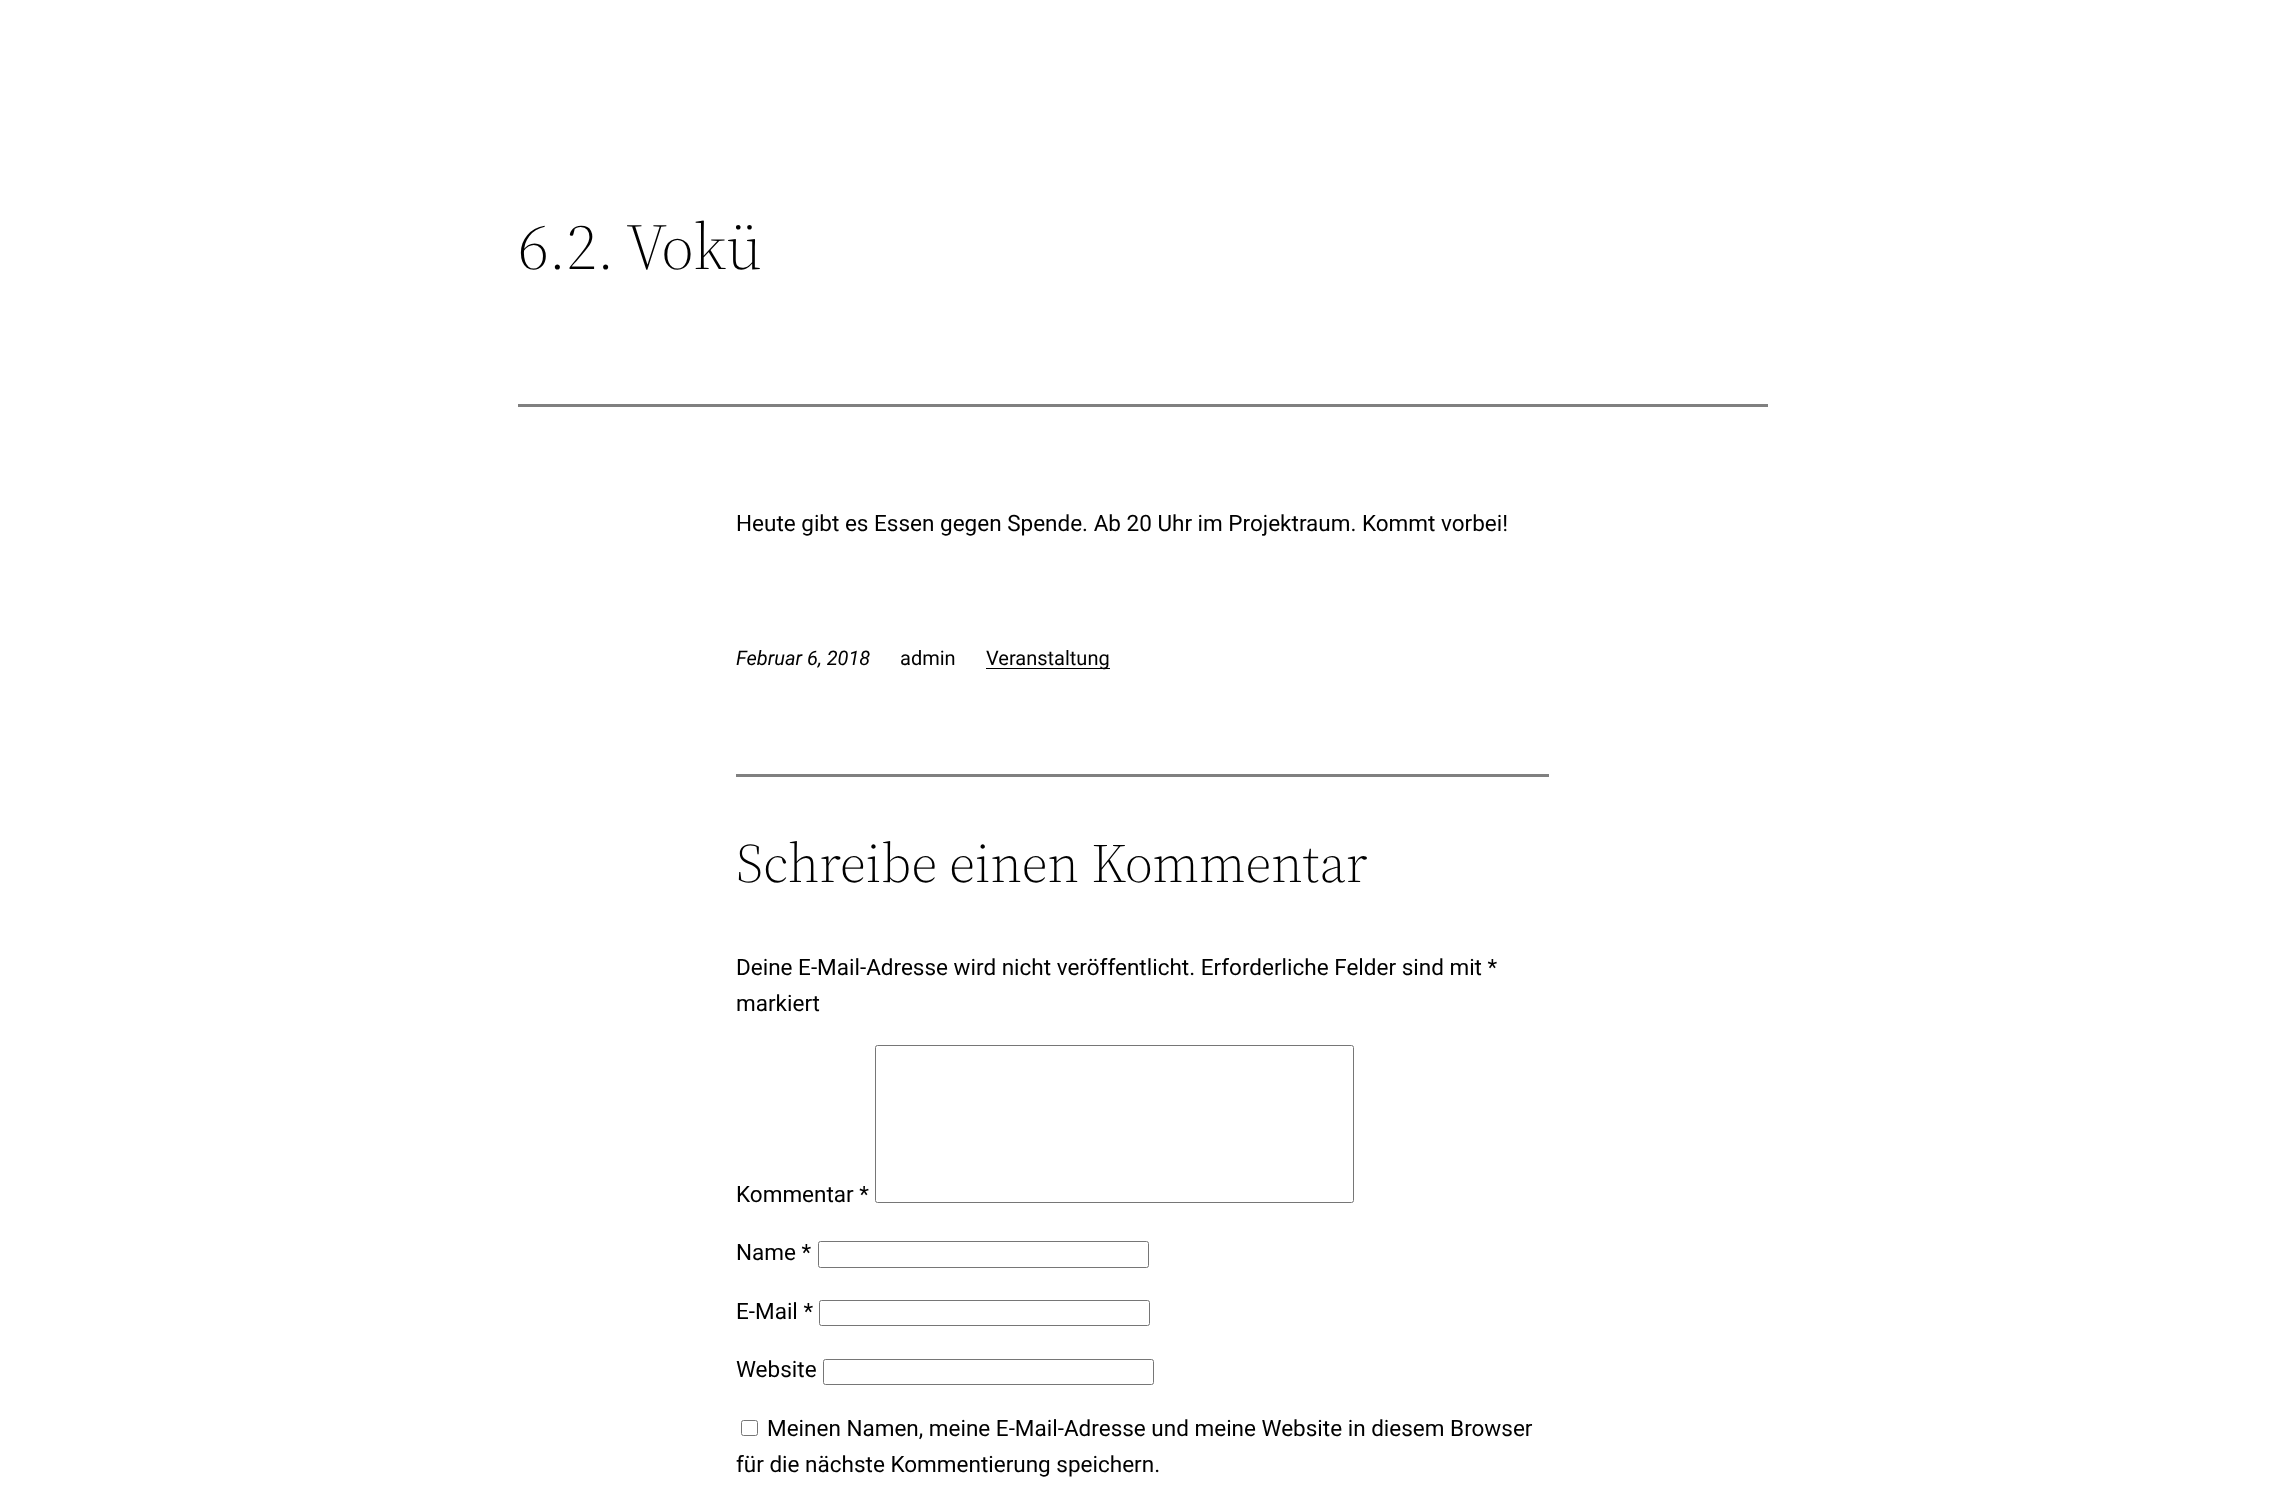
<svg xmlns="http://www.w3.org/2000/svg" width="2284" height="1498" viewBox="0 0 2284 1498">
  <rect width="100%" height="100%" fill="#fff"/>
  <path d="M518 404h1250v3H518z" fill="#808080"/>
  <path d="M986 668h124v1H986z" fill="#000"/>
  <path d="M736 774h813v3H736z" fill="#808080"/>
  <rect x="875.5" y="1045.5" width="478" height="157" rx="2" fill="none" stroke="#767676"/>
  <rect x="818.5" y="1241.5" width="330" height="26" rx="2" fill="none" stroke="#767676"/>
  <rect x="819.5" y="1300.5" width="330" height="25" rx="2" fill="none" stroke="#767676"/>
  <rect x="823.5" y="1359.5" width="330" height="25" rx="2" fill="none" stroke="#767676"/>
  <rect x="741.5" y="1420.5" width="16" height="15" rx="2" fill="none" stroke="#767676"/>
  <text x="518" y="269" font-family="'Source Serif 4'" font-size="65" font-weight="300" fill="#000">6.2. Vokü</text>
  <text x="736" y="531" font-family="Roboto" font-size="22.5" fill="#000">Heute gibt es Essen gegen Spende. Ab 20 Uhr im Projektraum. Kommt vorbei!</text>
  <text x="736" y="665" font-family="Roboto" font-size="20" font-style="italic" fill="#000">Februar 6, 2018</text>
  <g font-family="Roboto" font-size="20" fill="#000">
    <text x="900" y="665">admin</text>
    <text x="986" y="665">Veranstaltung</text>
  </g>
  <text x="736" y="882" font-family="'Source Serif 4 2'" font-size="55" font-weight="300" fill="#000">Schreibe einen Kommentar</text>
  <g font-family="Roboto" font-size="22.5" fill="#000">
    <text x="736" y="975">Deine E-Mail-Adresse wird nicht veröffentlicht. Erforderliche Felder sind mit *</text>
    <text x="736" y="1011">markiert</text>
    <text x="736" y="1202">Kommentar *</text>
    <text x="736" y="1260">Name *</text>
    <text x="736" y="1319">E-Mail *</text>
    <text x="736" y="1377">Website</text>
    <text x="767" y="1436">Meinen Namen, meine E-Mail-Adresse und meine Website in diesem Browser</text>
    <text x="736" y="1472">für die nächste Kommentierung speichern.</text>
  </g>
</svg>
